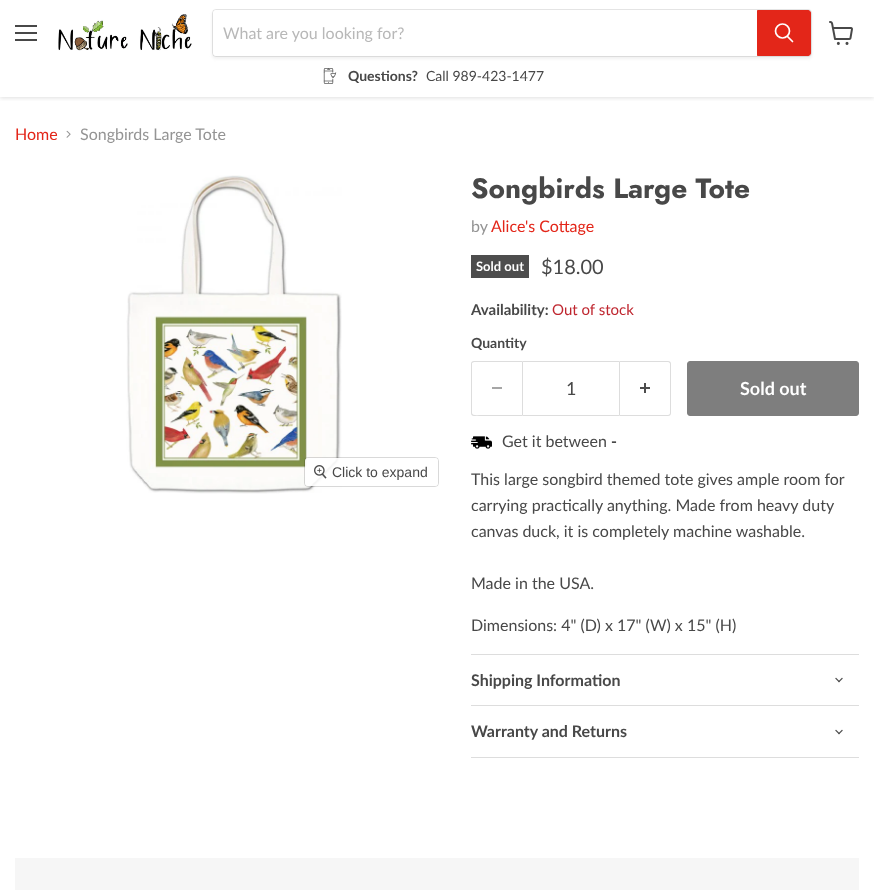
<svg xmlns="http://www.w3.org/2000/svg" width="874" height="890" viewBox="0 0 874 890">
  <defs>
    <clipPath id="clip1"><path d="M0 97h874v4H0z"/></clipPath>
  </defs>
  <rect width="100%" height="100%" fill="#fff"/>
  <g clip-path="url(#clip1)">
    <path d="M0 1h874v97H0z" fill="#80808040" filter="blur(2px)"/>
  </g>
  <path d="M15 25h22v2H15z" fill="#484848"/>
  <path d="M15 32h22v2H15z" fill="#484848"/>
  <path d="M15 39h22v2H15z" fill="#484848"/>
  <image x="58" y="14" width="134" height="37" href="img/1.png"/>
  <rect x="212" y="11" width="600" height="48" rx="4" fill="#8080801c" filter="blur(1.5px)"/>
  <rect x="212.5" y="9.5" width="599" height="47" rx="3.5" fill="none" stroke="#80808033"/>
  <path d="M216 10H757V56H216C214.5 56 213 54.5 213 53V13C213 11.5 214.5 10 216 10Z" fill="#fff"/>
  <path d="M757.5 10.5H808C809.5 10.5 810.5 11.5 810.5 13V53C810.5 54.5 809.5 55.5 808 55.5H757.5Z" fill="#e32619" stroke="#e32619"/>
  <path d="M792.5 41.5L787.5 36.5" fill="none" stroke="#fff" stroke-width="1.7" stroke-linecap="round"/>
  <circle cx="782.5" cy="31" r="7" fill="none" stroke="#fff" stroke-width="1.7"/>
  <image x="323" y="68" width="14" height="16" href="img/2.png"/>
  <image x="829" y="21" width="24" height="24" href="img/3.png"/>
  <image x="66" y="130" width="5" height="8" href="img/4.png"/>
  <image x="126" y="175" width="216" height="319" href="img/5.png"/>
  <rect x="304.5" y="457.5" width="134" height="29" rx="3.5" fill="none" stroke="#00000026"/>
  <rect x="305" y="458" width="133" height="28" rx="3" fill="#ffffffe6"/>
  <image x="314" y="465" width="13" height="14" href="img/6.png"/>
  <path d="M471 255h58v23H471z" fill="#4d4d4d"/>
  <path d="M474 361H522V416H474C472 416 471 415 471 413V364C471 362 472 361 474 361ZM474 362H522V415H482C478 415 472 416 472 413V363Z" fill="#ddd" fill-rule="evenodd"/>
  <path d="M492 387h10v2H492z" fill="#a6a6a6"/>
  <path d="M522.5 361.5h97v54H522.5z" fill="none" stroke="#ddd"/>
  <path d="M620 361H668C670 361 671 362 671 364V413C671 415 670 416 668 416H620ZM620 362H668C669 362 670 363 670 364V413C670 414 669 415 668 415H620Z" fill="#ddd" fill-rule="evenodd"/>
  <image x="640" y="383" width="10" height="10" href="img/7.png"/>
  <rect x="687.5" y="361.5" width="171" height="54" rx="2.5" fill="#7e7e7e" stroke="#7e7e7e"/>
  <image x="471" y="436" width="21" height="13" href="img/8.png"/>
  <path d="M471 654h388v1H471z" fill="#ddd"/>
  <path d="M471 705h388v1H471z" fill="#ddd"/>
  <image x="835" y="677" width="8" height="6" href="img/9.png"/>
  <path d="M471 757h388v1H471z" fill="#ddd"/>
  <image x="835" y="729" width="8" height="6" href="img/9.png"/>
  <path d="M15 858h844v32H15z" fill="#f6f6f6"/>
  <text x="223" y="39" font-family="Lato" font-size="16" fill="#b8b8b8">What are you looking for?</text>
  <text x="348" y="81" font-family="Lato" font-size="14" font-weight="bold" fill="#484848">Questions?</text>
  <text x="426" y="81" font-family="Lato" font-size="14" fill="#484848">Call 989-423-1477</text>
  <text x="15" y="140" font-family="Lato" font-size="16" fill="#e32619">Home</text>
  <text x="80" y="140" font-family="Lato" font-size="16" fill="#949494">Songbirds Large Tote</text>
  <text x="332" y="477" font-family="Liberation Sans" font-size="14" fill="#484848">Click to expand</text>
  <text x="471" y="198" font-family="Jost" font-size="28" font-weight="bold" fill="#484848">Songbirds Large Tote</text>
  <text x="471" y="232" font-family="Lato" font-size="16" fill="#949494">by</text>
  <text x="491" y="232" font-family="Lato" font-size="16" fill="#e32619">Alice's Cottage</text>
  <text x="476" y="271" font-family="Lato" font-size="13" font-weight="bold" fill="#fff">Sold out</text>
  <text x="541" y="274" font-family="Lato" font-size="20" fill="#484848">$18.00</text>
  <text x="471" y="315" font-family="Lato" font-size="15" font-weight="bold" fill="#484848">Availability:</text>
  <text x="552" y="315" font-family="Lato" font-size="15" fill="#bf262f">Out of stock</text>
  <text x="471" y="348" font-family="Lato" font-size="14" font-weight="bold" fill="#484848">Quantity</text>
  <text x="566" y="395" font-family="Lato" font-size="18" fill="#484848">1</text>
  <text x="740" y="395" font-family="Lato" font-size="18" font-weight="bold" fill="#fff">Sold out</text>
  <text x="502" y="447" font-family="Lato" font-size="16" fill="#484848">Get it between</text>
  <text x="611" y="447" font-family="Lato" font-size="16" font-weight="bold" fill="#484848">-</text>
  <g font-family="Lato" font-size="16" fill="#484848">
    <text x="471" y="485">This large songbird themed tote gives ample room for</text>
    <text x="471" y="511">carrying practically anything. Made from heavy duty</text>
    <text x="471" y="537">canvas duck, it is completely machine washable.</text>
    <text x="471" y="589">Made in the USA.</text>
    <text x="471" y="631">Dimensions: 4" (D) x 17" (W) x 15" (H)</text>
  </g>
  <g font-family="Lato" font-size="16" font-weight="bold" fill="#484848">
    <text x="471" y="686">Shipping Information</text>
    <text x="471" y="737">Warranty and Returns</text>
  </g>
</svg>
